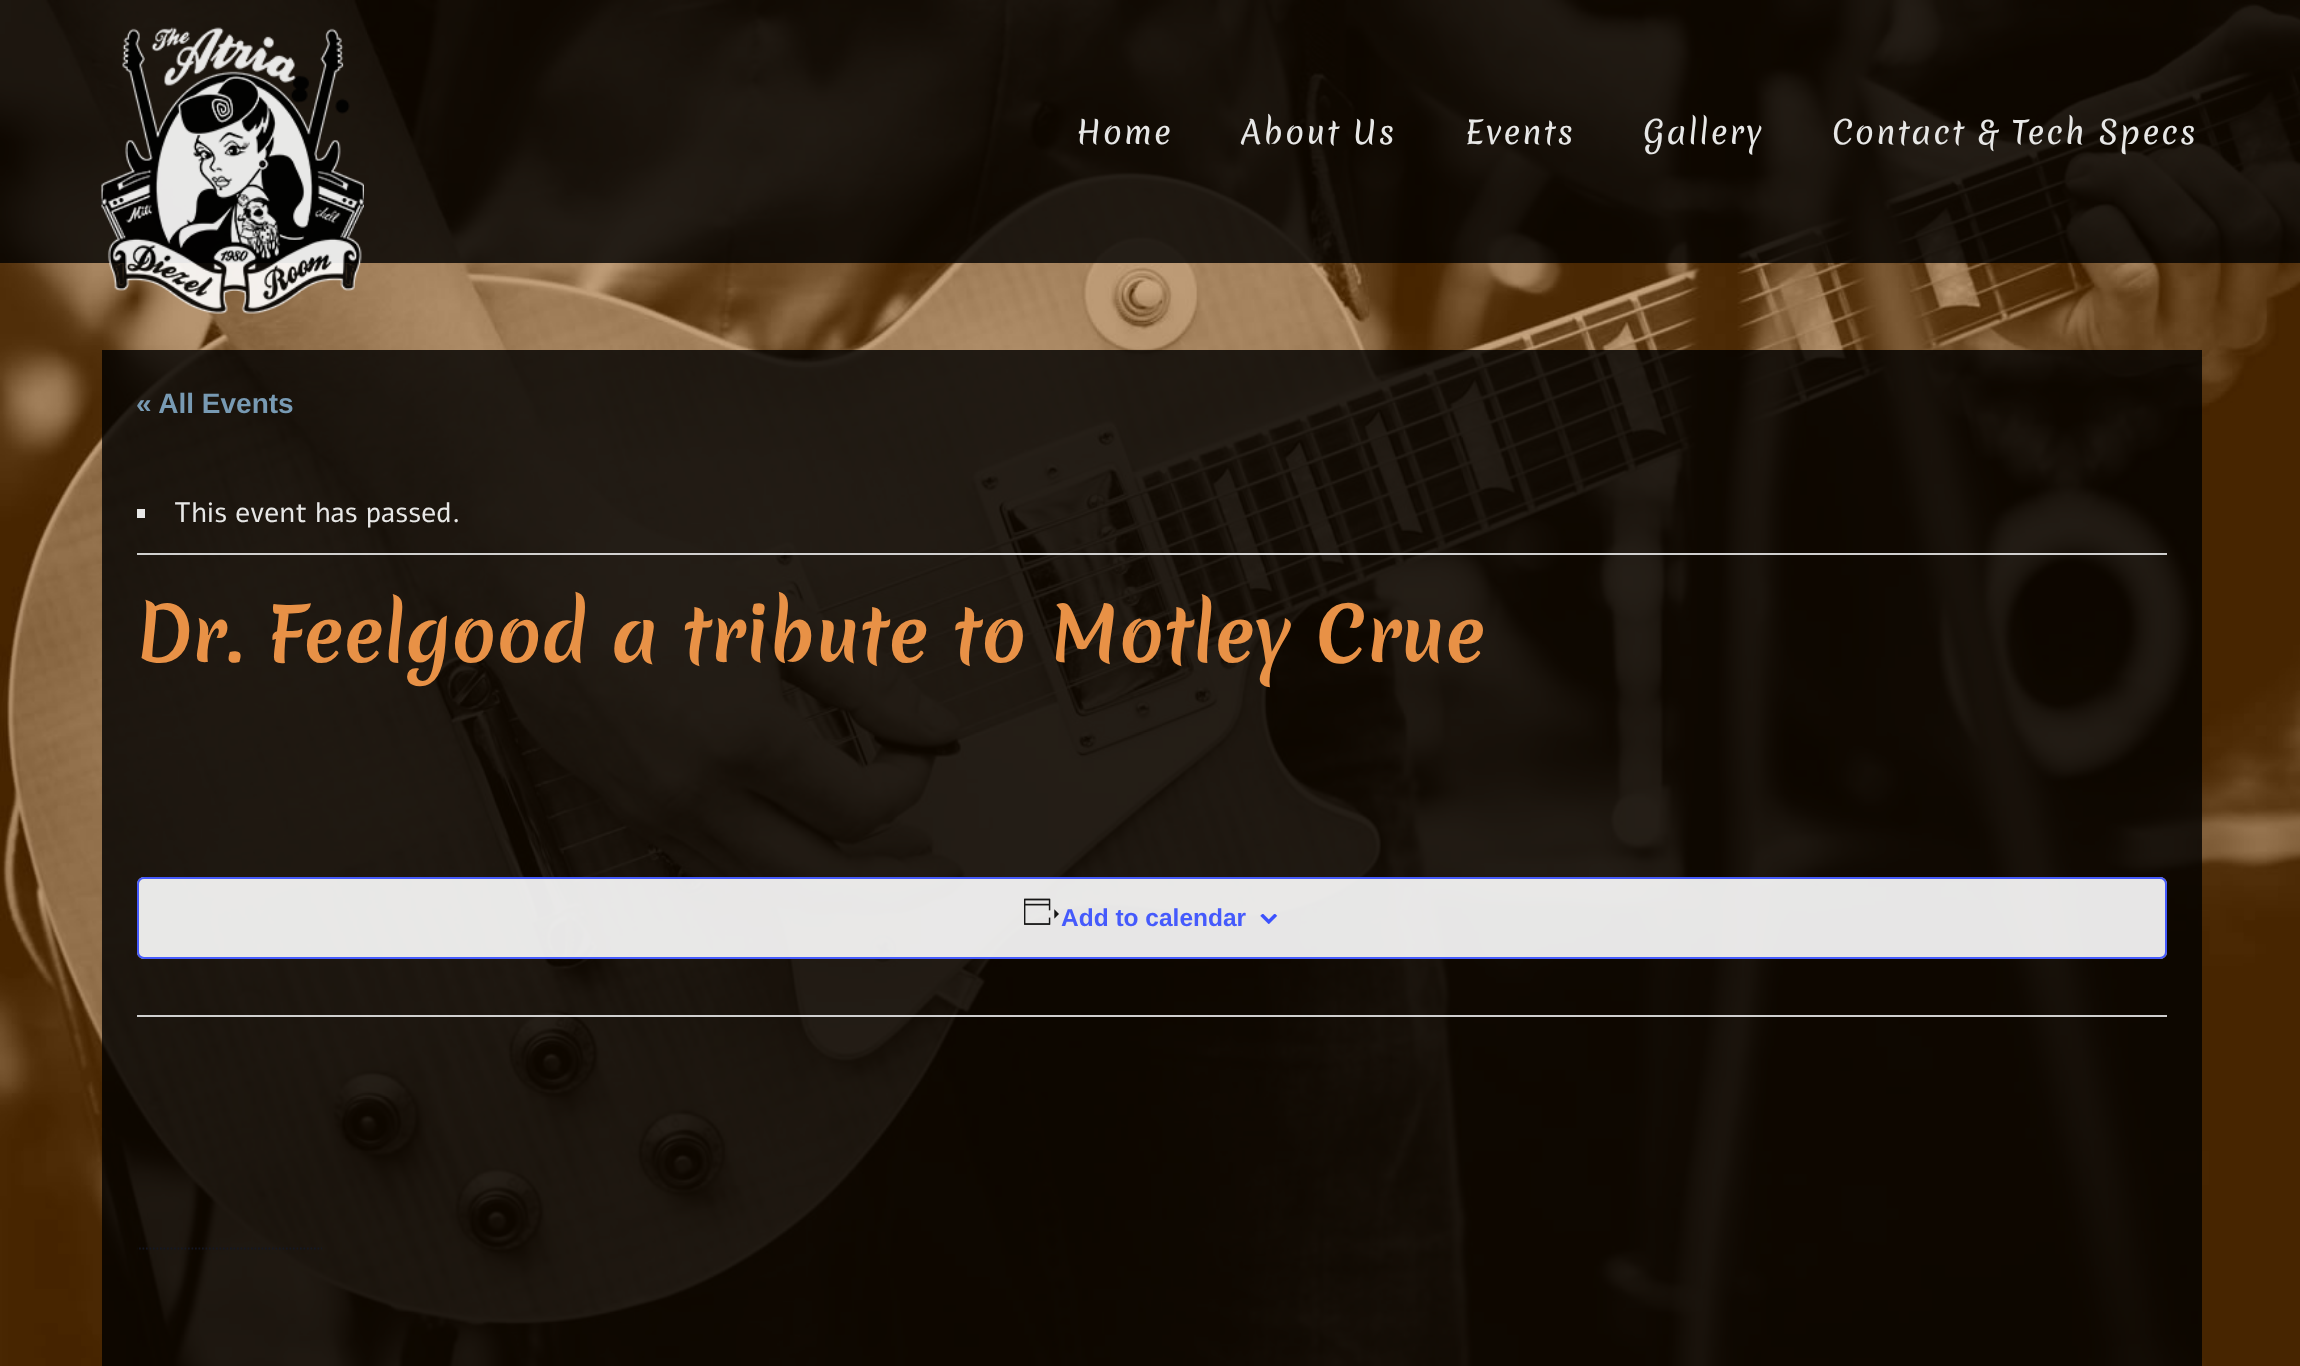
<svg xmlns="http://www.w3.org/2000/svg" width="2300" height="1366" viewBox="0 0 2300 1366">
  <defs>
    <clipPath id="clip1"><path d="M137 821h2030v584H137z"/></clipPath>
  </defs>
  <rect width="100%" height="100%" fill="#fff"/>
  <image x="0" y="0" width="2300" height="1366" href="img/1.png"/>
  <path d="M0 0h2300v263H0z" fill="#000000cf"/>
  <image x="101" y="27" width="263" height="287" href="img/2.png"/>
  <path d="M102 350h2100v1016H102z" fill="#000000cf"/>
  <path d="M137 553h2030v2H137z" fill="#e4e4e4e6"/>
  <path d="M137 509h8v9H137z" fill="#e8e8e7"/>
  <rect x="137" y="877" width="2030" height="82" rx="7" fill="#ffffffe6"/>
  <rect x="138" y="878" width="2028" height="80" rx="6" fill="none" stroke="#334affe6" stroke-width="2"/>
  <image x="1024" y="898" width="35" height="27" href="img/3.png"/>
  <image x="1260" y="914" width="18" height="10" href="img/4.png"/>
  <path d="M137 1015h2030v2H137z" fill="#e4e4e4e6"/>
  <g clip-path="url(#clip1)">
    <path d="M135.5 1248.5H322" fill="none" stroke="#141827e6" stroke-width="1.8" stroke-dasharray="1.75 1.75"/>
  </g>
  <g font-family="Merienda" font-size="31.5" letter-spacing="1.75" fill="#e7e7e6">
    <text x="1076" y="144">Home</text>
    <text x="1241" y="144">About Us</text>
    <text x="1465" y="144">Events</text>
    <text x="1643" y="144">Gallery</text>
    <text x="1832" y="144">Contact &amp; Tech Specs</text>
  </g>
  <text x="136" y="413" font-family="Liberation Sans" font-size="28" font-weight="bold" fill="#789ab3">« All Events</text>
  <text x="174" y="522" font-family="Alef" font-size="28" fill="#e7e7e6">This event has passed.</text>
  <text x="136" y="662" font-family="Merienda" font-size="73.5" font-weight="bold" fill="#e89146">Dr. Feelgood a tribute to Motley Crue</text>
  <text x="1061" y="926" font-family="Liberation Sans" font-size="24.5" font-weight="bold" fill="#455afc">Add to calendar</text>
</svg>
